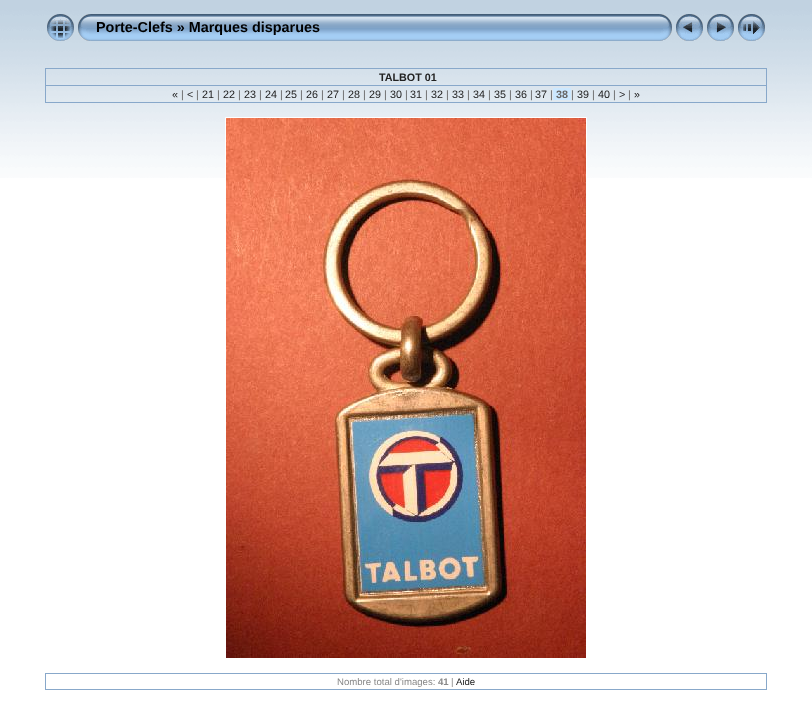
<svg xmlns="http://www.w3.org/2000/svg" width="812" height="723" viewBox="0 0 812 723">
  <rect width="100%" height="100%" fill="#fff"/>
  <image x="0" y="0" width="812" height="178" href="img/1.png"/>
  <image x="47" y="14" width="27" height="27" href="img/2.png"/>
  <image x="78" y="14" width="18" height="27" href="img/3.png"/>
  <image x="96" y="14" width="558" height="27" href="img/4.png"/>
  <image x="654" y="14" width="18" height="27" href="img/5.png"/>
  <image x="676" y="14" width="27" height="27" href="img/6.png"/>
  <image x="707" y="14" width="27" height="27" href="img/7.png"/>
  <image x="738" y="14" width="27" height="27" href="img/8.png"/>
  <path d="M45 68h722v1H45z" fill="#88a8ca"/>
  <path d="M766 68h1v35H766z" fill="#88a8ca"/>
  <path d="M45 102h722v1H45z" fill="#88a8ca"/>
  <path d="M45 68h1v35H45z" fill="#88a8ca"/>
  <path d="M45 85h722v1H45z" fill="#88a8ca"/>
  <path d="M553 88h18v12H553z" fill="#cce8ff"/>
  <path d="M225.5 117.5h361v541H225.5z" fill="none" stroke="#fff"/>
  <image x="226" y="118" width="360" height="540" href="img/9.png"/>
  <path d="M45 673h722v1H45z" fill="#88a8ca"/>
  <path d="M766 673h1v17H766z" fill="#88a8ca"/>
  <path d="M45 689h722v1H45z" fill="#88a8ca"/>
  <path d="M45 673h1v17H45z" fill="#88a8ca"/>
  <text x="96" y="32" font-family="Liberation Sans" font-size="14.4" font-weight="bold" fill="#000">Porte-Clefs » Marques disparues</text>
  <text x="379" y="81" font-family="Liberation Sans" font-size="10.75" font-weight="bold" fill="#222">TALBOT 01</text>
  <text x="172" y="98" font-family="Liberation Sans" font-size="10.75" fill="#222">«</text>
  <text x="181" y="98" font-family="Liberation Sans" font-size="10.75" fill="#666">|</text>
  <text x="187" y="98" font-family="Liberation Sans" font-size="10.75" fill="#222">&lt;</text>
  <text x="196" y="98" font-family="Liberation Sans" font-size="10.75" fill="#666">|</text>
  <text x="202" y="98" font-family="Liberation Sans" font-size="10.75" fill="#222">21</text>
  <text x="217" y="98" font-family="Liberation Sans" font-size="10.75" fill="#666">|</text>
  <text x="223" y="98" font-family="Liberation Sans" font-size="10.75" fill="#222">22</text>
  <text x="238" y="98" font-family="Liberation Sans" font-size="10.75" fill="#666">|</text>
  <text x="244" y="98" font-family="Liberation Sans" font-size="10.75" fill="#222">23</text>
  <text x="259" y="98" font-family="Liberation Sans" font-size="10.75" fill="#666">|</text>
  <text x="265" y="98" font-family="Liberation Sans" font-size="10.75" fill="#222">24</text>
  <text x="280" y="98" font-family="Liberation Sans" font-size="10.75" fill="#666">|</text>
  <text x="285" y="98" font-family="Liberation Sans" font-size="10.75" fill="#222">25</text>
  <text x="300" y="98" font-family="Liberation Sans" font-size="10.75" fill="#666">|</text>
  <text x="306" y="98" font-family="Liberation Sans" font-size="10.75" fill="#222">26</text>
  <text x="321" y="98" font-family="Liberation Sans" font-size="10.75" fill="#666">|</text>
  <text x="327" y="98" font-family="Liberation Sans" font-size="10.75" fill="#222">27</text>
  <text x="342" y="98" font-family="Liberation Sans" font-size="10.75" fill="#666">|</text>
  <text x="348" y="98" font-family="Liberation Sans" font-size="10.75" fill="#222">28</text>
  <text x="363" y="98" font-family="Liberation Sans" font-size="10.75" fill="#666">|</text>
  <text x="369" y="98" font-family="Liberation Sans" font-size="10.75" fill="#222">29</text>
  <text x="384" y="98" font-family="Liberation Sans" font-size="10.75" fill="#666">|</text>
  <text x="390" y="98" font-family="Liberation Sans" font-size="10.75" fill="#222">30</text>
  <text x="405" y="98" font-family="Liberation Sans" font-size="10.75" fill="#666">|</text>
  <text x="410" y="98" font-family="Liberation Sans" font-size="10.75" fill="#222">31</text>
  <text x="425" y="98" font-family="Liberation Sans" font-size="10.75" fill="#666">|</text>
  <text x="431" y="98" font-family="Liberation Sans" font-size="10.75" fill="#222">32</text>
  <text x="446" y="98" font-family="Liberation Sans" font-size="10.75" fill="#666">|</text>
  <text x="452" y="98" font-family="Liberation Sans" font-size="10.75" fill="#222">33</text>
  <text x="467" y="98" font-family="Liberation Sans" font-size="10.75" fill="#666">|</text>
  <text x="473" y="98" font-family="Liberation Sans" font-size="10.75" fill="#222">34</text>
  <text x="488" y="98" font-family="Liberation Sans" font-size="10.75" fill="#666">|</text>
  <text x="494" y="98" font-family="Liberation Sans" font-size="10.75" fill="#222">35</text>
  <text x="509" y="98" font-family="Liberation Sans" font-size="10.75" fill="#666">|</text>
  <text x="515" y="98" font-family="Liberation Sans" font-size="10.75" fill="#222">36</text>
  <text x="530" y="98" font-family="Liberation Sans" font-size="10.75" fill="#666">|</text>
  <text x="535" y="98" font-family="Liberation Sans" font-size="10.75" fill="#222">37</text>
  <text x="550" y="98" font-family="Liberation Sans" font-size="10.75" fill="#666">|</text>
  <text x="556" y="98" font-family="Liberation Sans" font-size="10.75" font-weight="bold" fill="#666">38</text>
  <text x="571" y="98" font-family="Liberation Sans" font-size="10.75" fill="#666">|</text>
  <text x="577" y="98" font-family="Liberation Sans" font-size="10.75" fill="#222">39</text>
  <text x="592" y="98" font-family="Liberation Sans" font-size="10.75" fill="#666">|</text>
  <text x="598" y="98" font-family="Liberation Sans" font-size="10.75" fill="#222">40</text>
  <text x="613" y="98" font-family="Liberation Sans" font-size="10.75" fill="#666">|</text>
  <text x="619" y="98" font-family="Liberation Sans" font-size="10.75" fill="#222">&gt;</text>
  <text x="628" y="98" font-family="Liberation Sans" font-size="10.75" fill="#666">|</text>
  <text x="634" y="98" font-family="Liberation Sans" font-size="10.75" fill="#222">»</text>
  <text x="337" y="685" font-family="Liberation Sans" font-size="9.6" fill="#888">Nombre total d'images:</text>
  <text x="438" y="685" font-family="Liberation Sans" font-size="9.6" font-weight="bold" fill="#888">41</text>
  <text x="451" y="685" font-family="Liberation Sans" font-size="9.6" fill="#888">|</text>
  <text x="456" y="685" font-family="Liberation Sans" font-size="9.6" fill="#222">Aide</text>
</svg>
